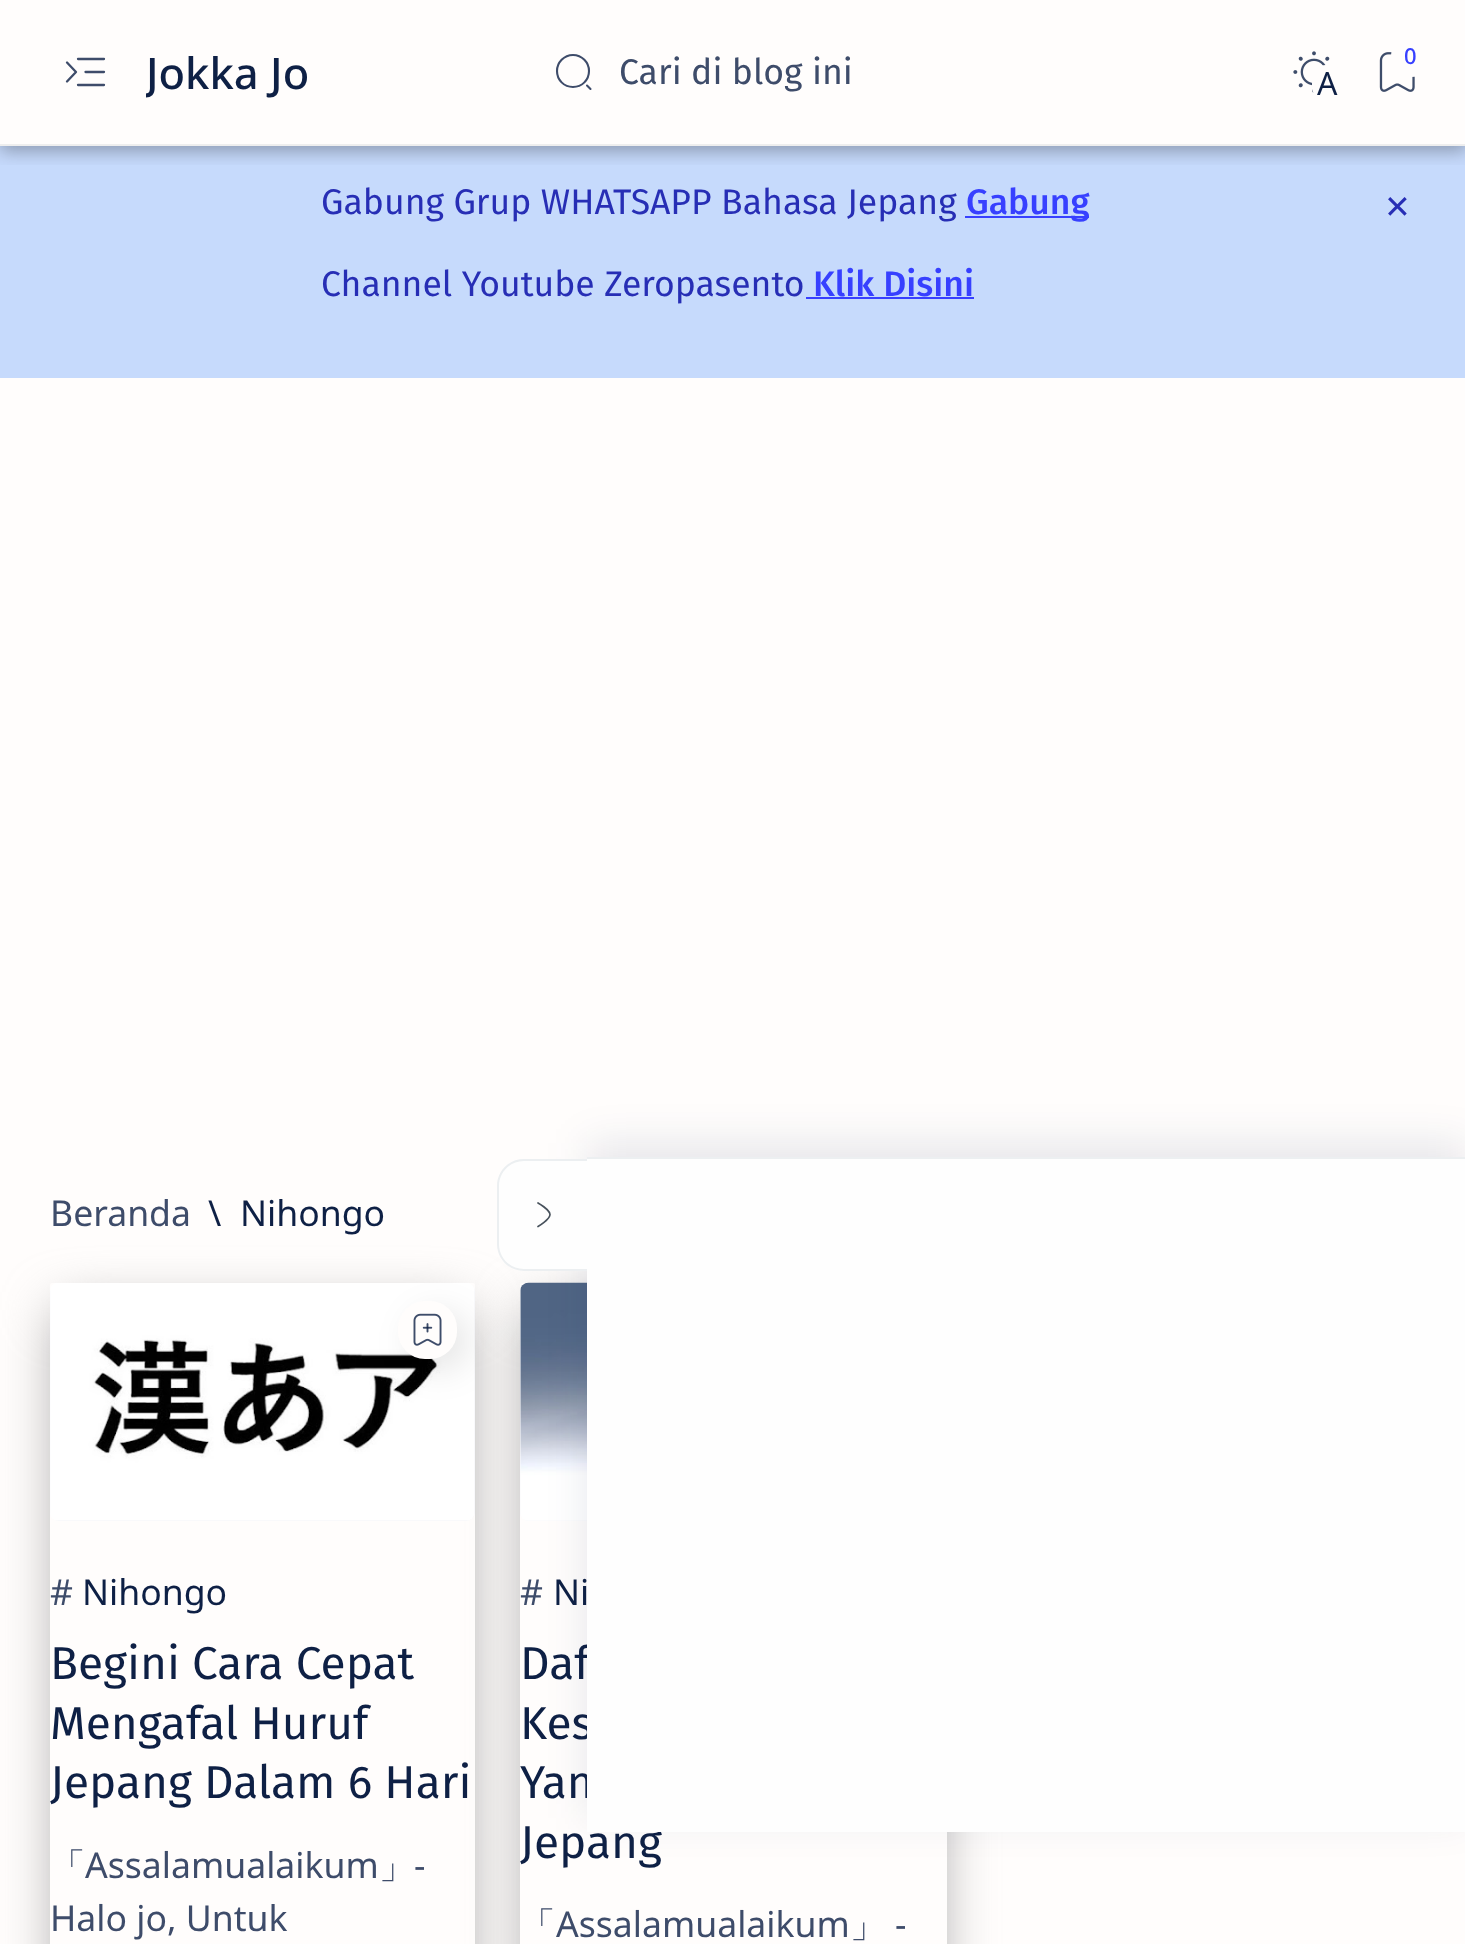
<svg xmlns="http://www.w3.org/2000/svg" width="1465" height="1944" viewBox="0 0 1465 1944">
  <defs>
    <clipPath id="clip1"><path d="M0 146h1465v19H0z"/></clipPath>
    <clipPath id="clip2"><rect x="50" y="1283" width="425" height="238" rx="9"/></clipPath>
    <clipPath id="clip3"><path d="M146 41h176v63H146z"/></clipPath>
  </defs>
  <rect width="100%" height="100%" fill="#fffdfc"/>
  <path d="M0 146h1465v232H0z" fill="#c6dafc"/>
  <g clip-path="url(#clip1)">
    <path d="M0 5h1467v146H0z" fill="#0000004d" filter="blur(9px)"/>
  </g>
  <path d="M0 144h1465v2H0z" fill="#eee"/>
  <path d="M67 81.5L76 72L67 62.5M78 59H104M85.5 72H104M78 85H104" fill="none" stroke="#3e4c6a" stroke-width="2.3" stroke-linecap="round" stroke-linejoin="round"/>
  <path d="M573 87C582 87 589 80 589 71C589 62.5 582 55 573 55C564 55 557 62.5 557 71C557 80 564 87 573 87ZM590.5 89L587 85.5" fill="none" stroke="#3e4c6a" stroke-width="2.1" stroke-linecap="round" stroke-linejoin="round"/>
  <image x="1379" y="52" width="36" height="40" href="img/1.png"/>
  <rect x="1391" y="36" width="40" height="41" rx="20" fill="#fffdfc"/>
  <image x="1293" y="51" width="37" height="42" href="img/2.png"/>
  <rect x="1312" y="65" width="31" height="36" rx="14" fill="#fffdfc"/>
  <path d="M965 216h124v2H965z" fill="#3740ff"/>
  <path d="M806 297h168v2H806z" fill="#3740ff"/>
  <path d="M59 1310h407v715H59z" fill="#9e9e9e" filter="blur(27px)"/>
  <rect x="50" y="1283" width="425" height="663" rx="2" fill="#fffdfc"/>
  <path d="M529 1310h409v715H529z" fill="#9e9e9e" filter="blur(27px)"/>
  <rect x="50" y="1283" width="425" height="238" rx="9" fill="#f9f9fb"/>
  <image x="50" y="1283" width="424" height="237" href="img/4.png"/>
  <g clip-path="url(#clip2)">
    <rect x="410" y="1312" width="58" height="58" rx="27" fill="#0000001a" filter="blur(17px)"/>
  </g>
  <rect x="398" y="1301" width="59" height="58" rx="27" fill="#fffdfc"/>
  <image x="413" y="1313" width="29" height="33" href="img/3.png"/>
  <rect x="520" y="1283" width="427" height="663" rx="2" fill="#fffdfc"/>
  <rect x="520" y="1283" width="427" height="238" rx="9" fill="#f9f9fb"/>
  <image x="520" y="1282" width="67" height="239" href="img/5.png"/>
  <path d="M587 1143h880v675H587z" fill="#09204c1a" filter="blur(20px)"/>
  <path d="M587 1157h878v2H587z" fill="#eceff1"/>
  <path d="M497 1244V1186C497 1171 509 1159 524 1159H587V1271H524C509 1271 497 1259 497 1244Z" fill="#fefefe"/>
  <path d="M497 1244V1186C497 1171 509 1159 524 1159H587V1271H524C509 1271 497 1259 497 1244ZM499 1244V1186C499 1172 510 1161 524 1161H587V1269H524C510 1269 499 1258 499 1244Z" fill="#eceff1" fill-rule="evenodd"/>
  <path d="M538 1203C538 1203 550 1210 550 1214.5C550 1219.5 538 1226.5 538 1226.5" fill="none" stroke="#48525c" stroke-width="1.7" stroke-linecap="round" stroke-linejoin="round"/>
  <g clip-path="url(#clip3)">
    <text x="146" y="89" font-family="Noto Sans" font-size="43.5" font-weight="500" fill="#0e2045">Jokka Jo</text>
  </g>
  <text x="619" y="84" font-family="Fira Sans" font-size="35.6" fill="#3e4c6a">Cari di blog ini</text>
  <text x="1404" y="64" font-family="Noto Sans" font-size="22" font-weight="500" fill="#3740ff">0</text>
  <text x="1317" y="95" font-family="Noto Sans" font-size="32" fill="#0e2045">A</text>
  <text x="321" y="214" font-family="Fira Sans" font-size="35.6" fill="#272eb5">Gabung Grup WHATSAPP Bahasa Jepang</text>
  <text x="966" y="214" font-family="Fira Sans" font-size="35.6" font-weight="500" fill="#3740ff">Gabung</text>
  <text x="321" y="296" font-family="Fira Sans" font-size="35.6" fill="#272eb5">Channel Youtube Zeropasento</text>
  <text x="813" y="296" font-family="Fira Sans" font-size="35.6" font-weight="500" fill="#3740ff">Klik Disini</text>
  <text x="1384" y="218" font-family="DejaVu Sans" font-size="32" fill="#272eb5">✕</text>
  <text x="50" y="1226" font-family="Noto Sans" font-size="35.6" fill="#3e4c6a">Beranda</text>
  <g font-family="Noto Sans" font-size="35.6" fill="#0e2045">
    <text x="208" y="1226">\</text>
    <text x="240" y="1226">Nihongo</text>
  </g>
  <text x="50" y="1605" font-family="Noto Sans" font-size="35.6" fill="#3e4c6a">#</text>
  <text x="82" y="1605" font-family="Noto Sans" font-size="35.6" fill="#0e2045">Nihongo</text>
  <g font-family="Fira Sans" font-size="46" fill="#0e2045">
    <text x="50" y="1679">Begini Cara Cepat</text>
    <text x="50" y="1739">Mengafal Huruf</text>
    <text x="50" y="1798">Jepang Dalam 6 Hari</text>
  </g>
  <text x="50" y="1878" font-family="WenQuanYi Zen Hei" font-size="35.6" font-weight="500" fill="#3e4c6a">「</text>
  <text x="85" y="1878" font-family="Noto Sans" font-size="35.6" fill="#3e4c6a">Assalamualaikum</text>
  <text x="379" y="1878" font-family="WenQuanYi Zen Hei" font-size="35.6" font-weight="500" fill="#3e4c6a">」</text>
  <g font-family="Noto Sans" font-size="35.6" fill="#3e4c6a">
    <text x="414" y="1878">-</text>
    <text x="50" y="1931">Halo jo, Untuk</text>
    <text x="520" y="1605">#</text>
  </g>
  <text x="553" y="1605" font-family="Noto Sans" font-size="35.6" fill="#0e2045">Ni</text>
  <g font-family="Fira Sans" font-size="46" fill="#0e2045">
    <text x="520" y="1679">Daf</text>
    <text x="520" y="1739">Kes</text>
    <text x="520" y="1798">Yan</text>
    <text x="520" y="1858">Jepang</text>
  </g>
  <text x="520" y="1937" font-family="WenQuanYi Zen Hei" font-size="35.6" font-weight="500" fill="#3e4c6a">「</text>
  <text x="556" y="1937" font-family="Noto Sans" font-size="35.6" fill="#3e4c6a">Assalamualaikum</text>
  <text x="850" y="1937" font-family="WenQuanYi Zen Hei" font-size="35.6" font-weight="500" fill="#3e4c6a">」</text>
  <text x="895" y="1937" font-family="Noto Sans" font-size="35.6" fill="#3e4c6a">-</text>
  <path d="M587 1159h878v673H587z" fill="#fefefe"/>
</svg>
